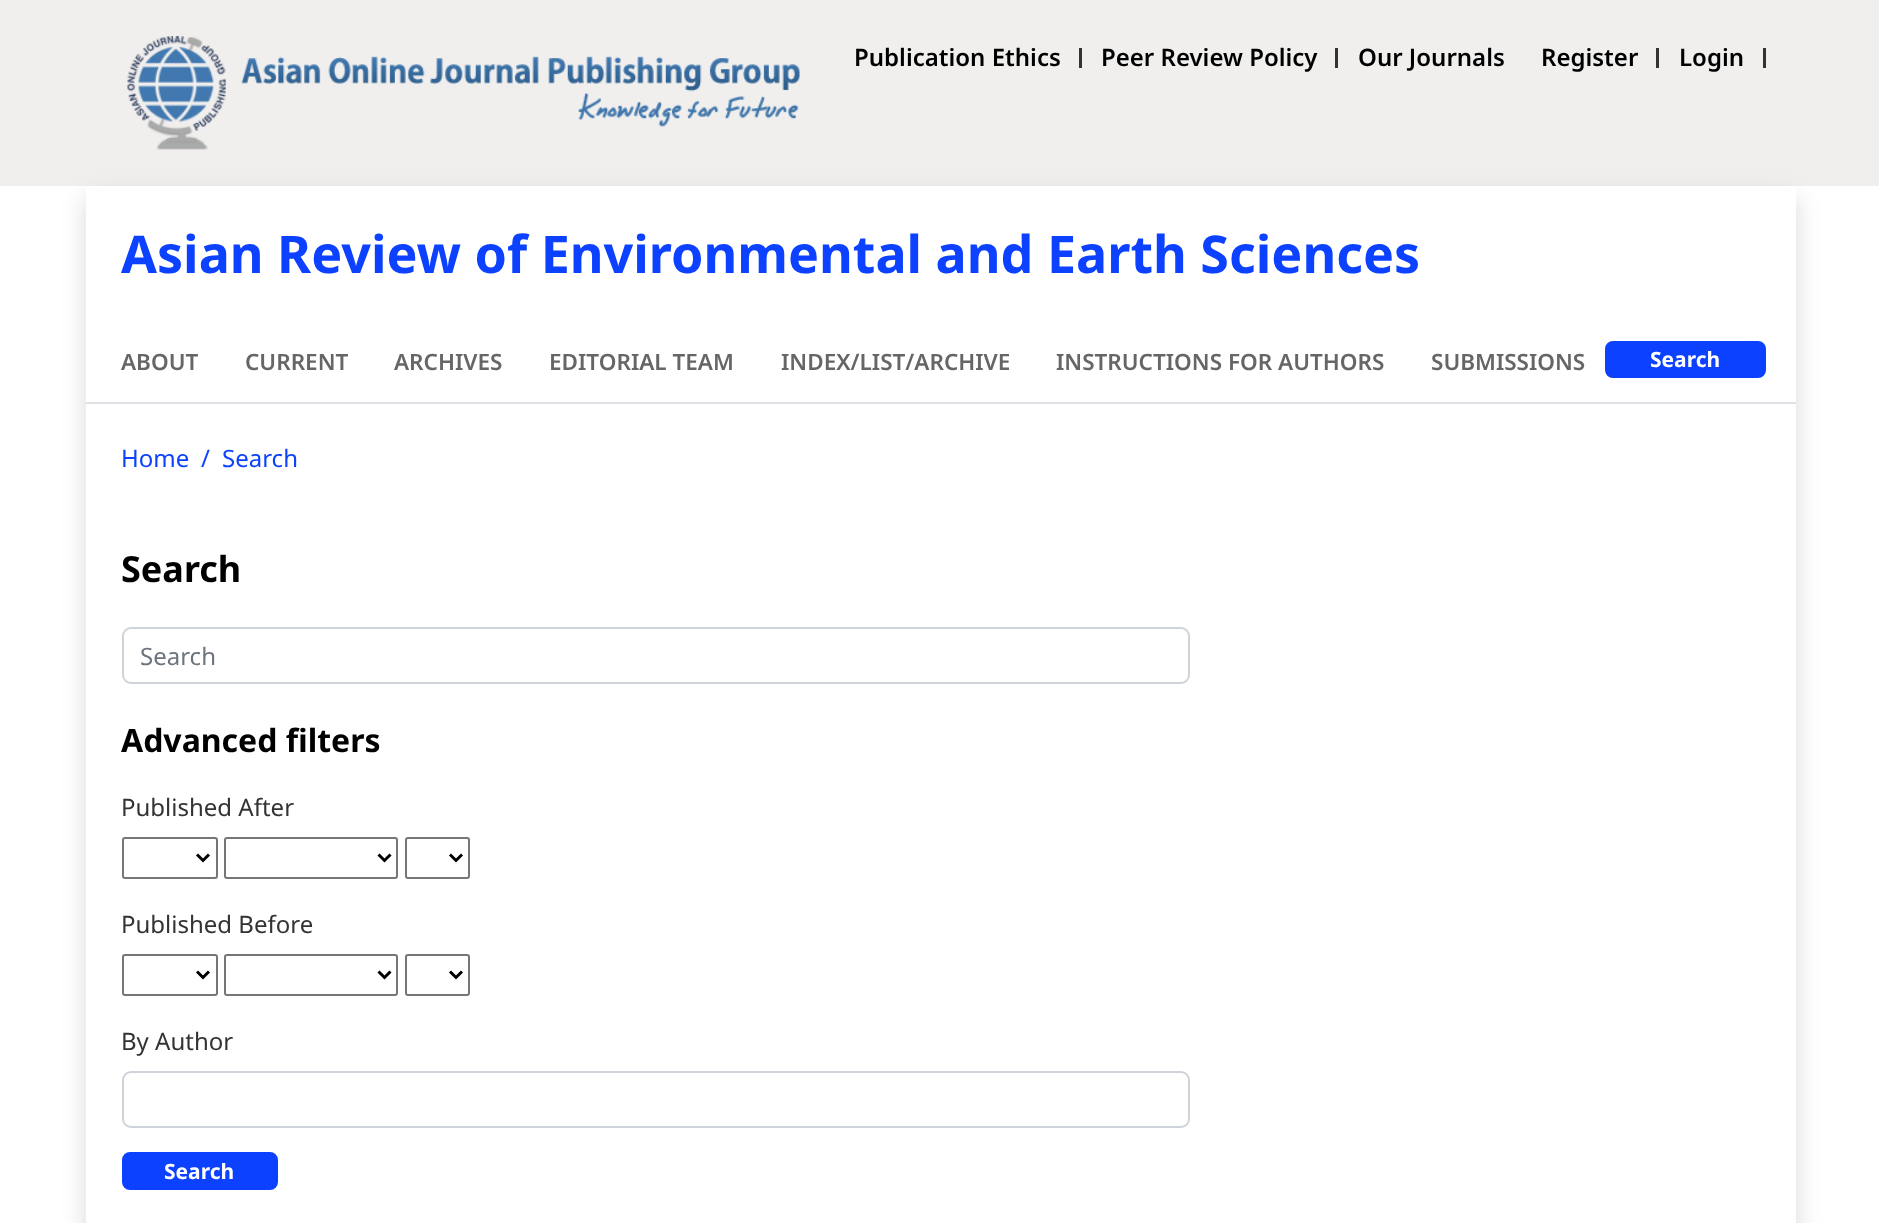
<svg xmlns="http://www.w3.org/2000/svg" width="1879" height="1223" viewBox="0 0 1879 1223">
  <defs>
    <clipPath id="clip1"><path d="M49 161H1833V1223H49ZM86 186H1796V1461H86Z" clip-rule="evenodd"/></clipPath>
  </defs>
  <rect width="100%" height="100%" fill="#fff"/>
  <path d="M0 0h1879v186H0z" fill="#f0efee"/>
  <image x="127" y="36" width="673" height="114" href="img/1.png"/>
  <path d="M1079 48h3v20H1079z" fill="#333"/>
  <path d="M1335 48h3v20H1335z" fill="#333"/>
  <path d="M1656 48h3v20H1656z" fill="#333"/>
  <path d="M1763 48h3v20H1763z" fill="#333"/>
  <g clip-path="url(#clip1)">
    <path d="M86 198h1710v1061H86z" fill="#00000026" filter="blur(12px)"/>
  </g>
  <path d="M86 402h1710v2H86z" fill="#dee2e6"/>
  <rect x="1606.5" y="342.5" width="158" height="34" rx="6.5" fill="#0b41ff" stroke="#0b41ff" stroke-width="3"/>
  <rect x="123" y="628" width="1066" height="55" rx="8" fill="none" stroke="#ced4da" stroke-width="2"/>
  <rect x="123" y="838" width="94" height="40" rx="2" fill="none" stroke="#767676" stroke-width="2"/>
  <path d="M197 854.5L203 860.5L209 854.5" fill="none" stroke="#000" stroke-width="3"/>
  <rect x="225" y="838" width="172" height="40" rx="2" fill="none" stroke="#767676" stroke-width="2"/>
  <path d="M378.5 854.5L384.5 860.5L390.5 854.5" fill="none" stroke="#000" stroke-width="3"/>
  <rect x="406" y="838" width="63" height="40" rx="2" fill="none" stroke="#767676" stroke-width="2"/>
  <path d="M450 854.5L456 860.5L462 854.5" fill="none" stroke="#000" stroke-width="3"/>
  <rect x="123" y="955" width="94" height="40" rx="2" fill="none" stroke="#767676" stroke-width="2"/>
  <path d="M197 971.5L203 977.5L209 971.5" fill="none" stroke="#000" stroke-width="3"/>
  <rect x="225" y="955" width="172" height="40" rx="2" fill="none" stroke="#767676" stroke-width="2"/>
  <path d="M378.5 971.5L384.5 977.5L390.5 971.5" fill="none" stroke="#000" stroke-width="3"/>
  <rect x="406" y="955" width="63" height="40" rx="2" fill="none" stroke="#767676" stroke-width="2"/>
  <path d="M450 971.5L456 977.5L462 971.5" fill="none" stroke="#000" stroke-width="3"/>
  <rect x="123" y="1072" width="1066" height="55" rx="8" fill="none" stroke="#ced4da" stroke-width="2"/>
  <rect x="123.5" y="1153.5" width="153" height="35" rx="6.5" fill="#0b41ff" stroke="#0b41ff" stroke-width="3"/>
  <g font-family="Noto Sans" font-size="24" font-weight="600" fill="#000">
    <text x="854" y="66">Publication Ethics</text>
    <text x="1101" y="66">Peer Review Policy</text>
    <text x="1358" y="66">Our Journals</text>
    <text x="1541" y="66">Register</text>
    <text x="1679" y="66">Login</text>
  </g>
  <text x="121" y="273" font-family="Noto Sans" font-size="52" font-weight="bold" fill="#0b41ff">Asian Review of Environmental and Earth Sciences</text>
  <g font-family="Noto Sans" font-size="22.5" font-weight="600" fill="#666">
    <text x="121" y="370">ABOUT</text>
    <text x="245" y="370">CURRENT</text>
    <text x="394" y="370">ARCHIVES</text>
    <text x="549" y="370">EDITORIAL TEAM</text>
    <text x="781" y="370">INDEX/LIST/ARCHIVE</text>
    <text x="1056" y="370">INSTRUCTIONS FOR AUTHORS</text>
    <text x="1431" y="370">SUBMISSIONS</text>
  </g>
  <text x="1650" y="367" font-family="Noto Sans" font-size="21" font-weight="bold" fill="#fff">Search</text>
  <g font-family="Noto Sans" font-size="24" fill="#0b41ff">
    <text x="121" y="467">Home</text>
    <text x="201" y="467">/</text>
    <text x="222" y="467">Search</text>
  </g>
  <text x="121" y="582" font-family="Noto Sans" font-size="36" font-weight="bold" fill="#000">Search</text>
  <text x="140" y="665" font-family="Noto Sans" font-size="24" fill="#6c757d">Search</text>
  <text x="121" y="752" font-family="Noto Sans" font-size="32" font-weight="bold" fill="#000">Advanced filters</text>
  <g font-family="Noto Sans" font-size="24" fill="#333">
    <text x="121" y="816">Published After</text>
    <text x="121" y="933">Published Before</text>
    <text x="121" y="1050">By Author</text>
  </g>
  <text x="164" y="1179" font-family="Noto Sans" font-size="21" font-weight="bold" fill="#fff">Search</text>
</svg>
